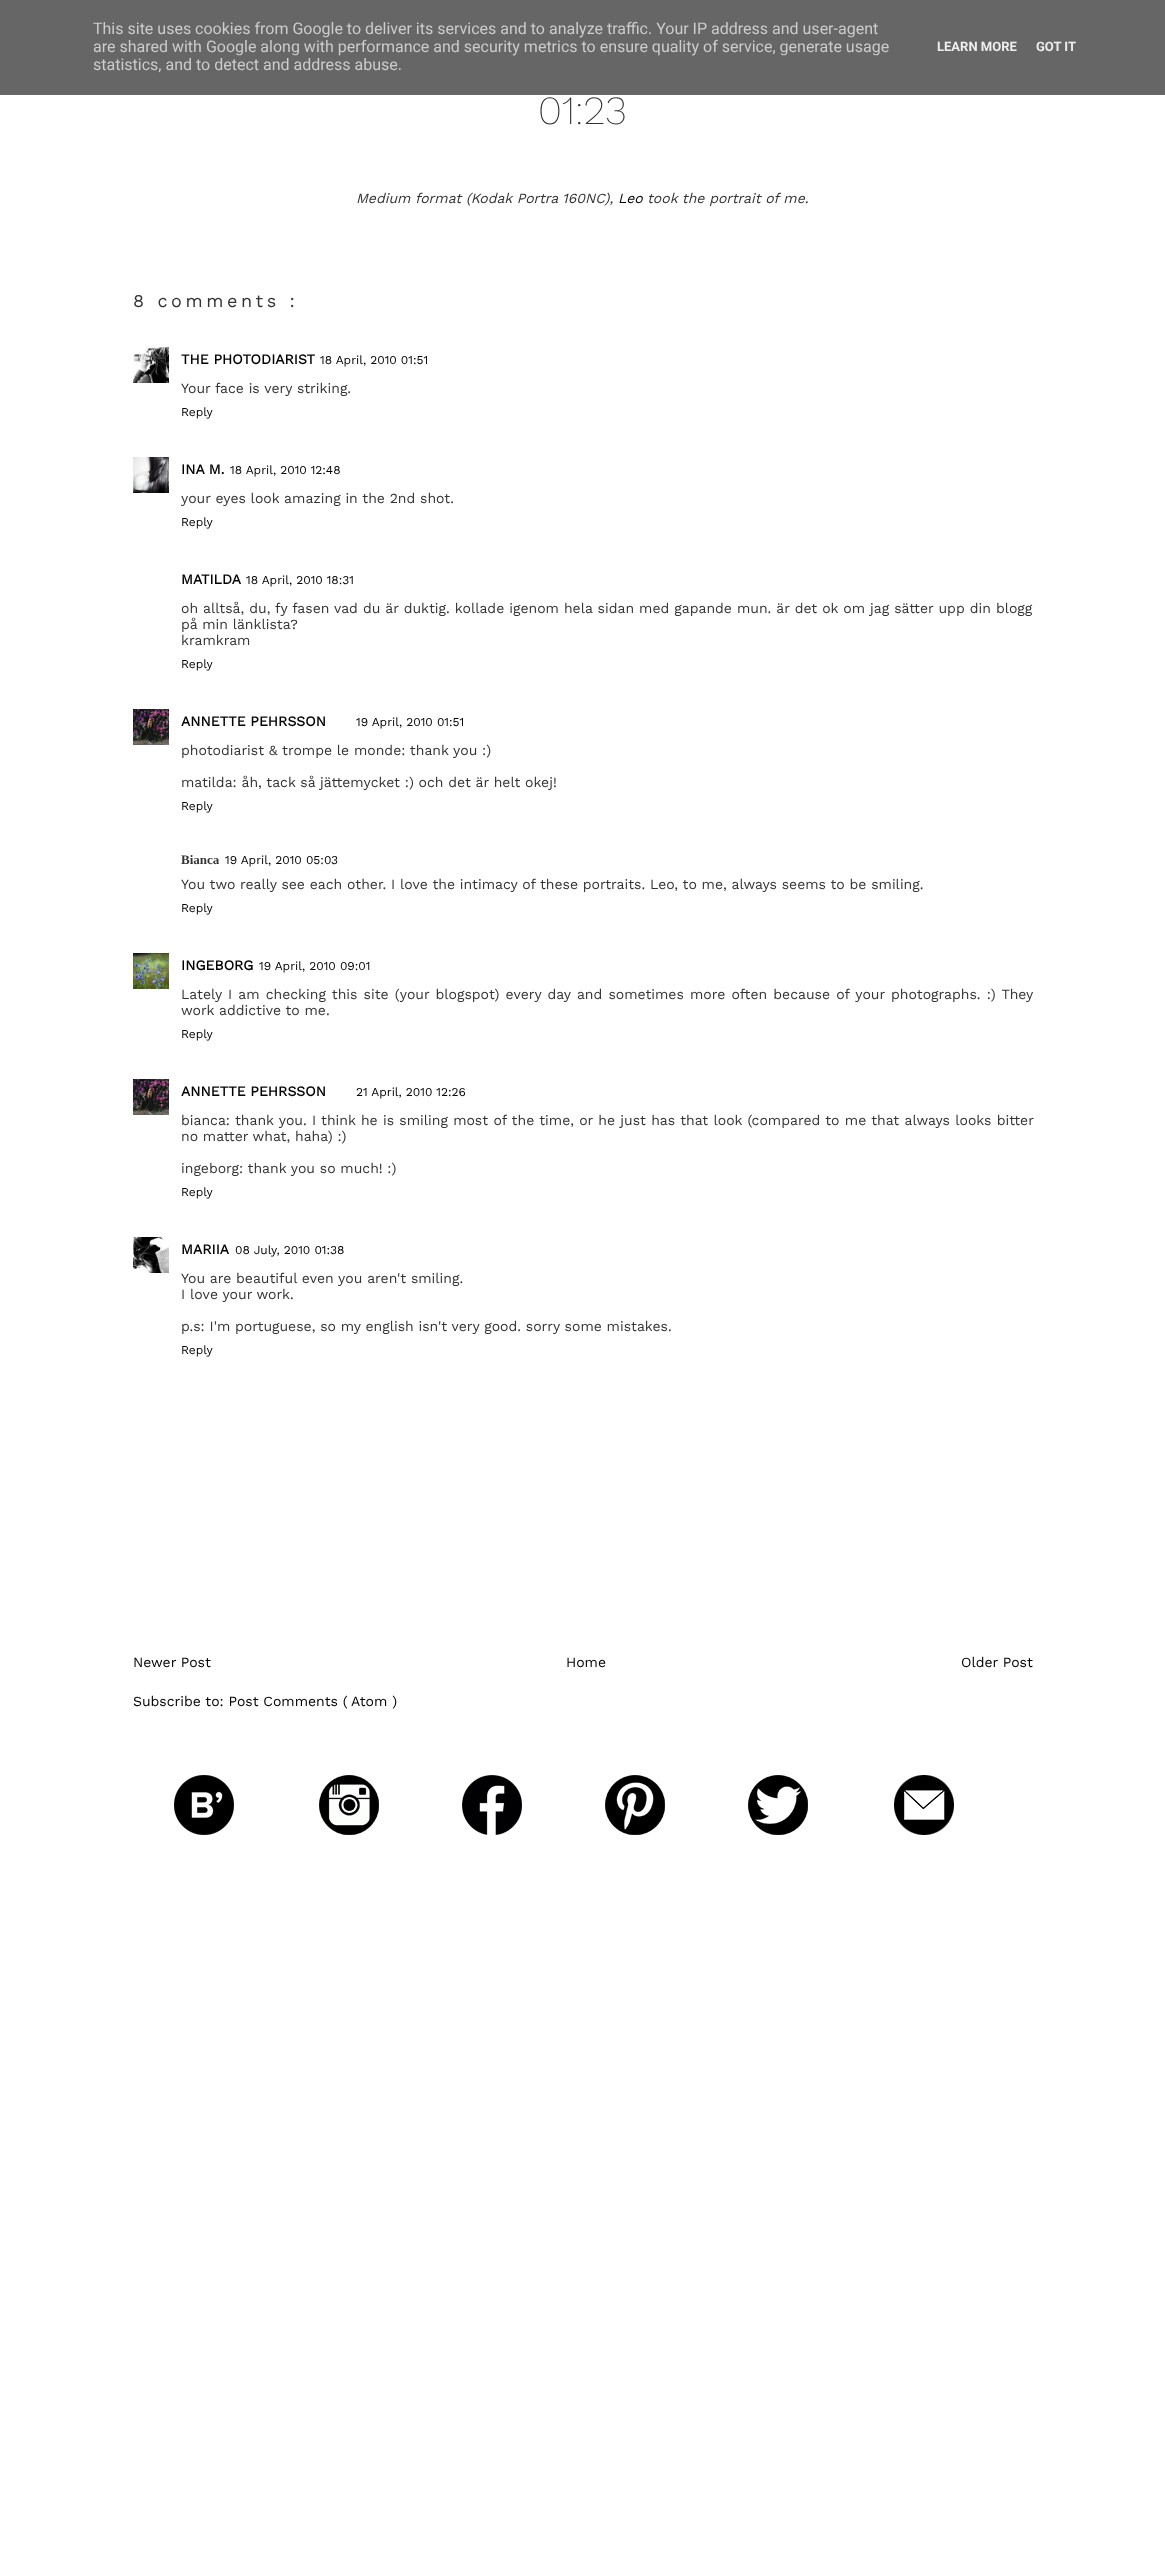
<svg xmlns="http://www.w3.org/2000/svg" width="1165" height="2572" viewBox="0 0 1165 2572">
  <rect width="100%" height="100%" fill="#fff"/>
  <path d="M0 0h1165v95H0z" fill="#666"/>
  <image x="133" y="347" width="36" height="36" href="img/1.png"/>
  <image x="133" y="457" width="36" height="36" href="img/2.png"/>
  <image x="133" y="709" width="36" height="36" href="img/3.png"/>
  <image x="133" y="953" width="36" height="36" href="img/4.png"/>
  <image x="133" y="1079" width="36" height="36" href="img/3.png"/>
  <image x="133" y="1237" width="36" height="36" href="img/5.png"/>
  <image x="174" y="1775" width="60" height="60" href="img/6.png"/>
  <image x="319" y="1775" width="60" height="60" href="img/7.png"/>
  <image x="462" y="1775" width="60" height="60" href="img/8.png"/>
  <image x="605" y="1775" width="60" height="60" href="img/9.png"/>
  <image x="748" y="1775" width="60" height="60" href="img/10.png"/>
  <image x="894" y="1775" width="60" height="60" href="img/11.png"/>
  <g font-family="Roboto" font-size="16" fill="#ccc">
    <text x="93" y="34">This site uses cookies from Google to deliver its services and to analyze traffic. Your IP address and user-agent</text>
    <text x="93" y="52">are shared with Google along with performance and security metrics to ensure quality of service, generate usage</text>
    <text x="93" y="70">statistics, and to detect and address abuse.</text>
  </g>
  <g font-family="Roboto" font-size="13" font-weight="bold" fill="#eee">
    <text x="937" y="51">LEARN MORE</text>
    <text x="1036" y="51">GOT IT</text>
  </g>
  <text x="538" y="124" font-family="Work Sans" font-size="40" font-weight="200" fill="#333">01:23</text>
  <text x="356" y="203" font-family="Work Sans" font-size="14" font-style="italic" fill="#333">Medium format (Kodak Portra 160NC),</text>
  <text x="618" y="203" font-family="Work Sans" font-size="14" font-style="italic" fill="#000">Leo</text>
  <text x="647" y="203" font-family="Work Sans" font-size="14" font-style="italic" fill="#333">took the portrait of me.</text>
  <text x="133" y="307" font-family="Work Sans" font-size="18" letter-spacing="3.6" fill="#333">8 comments :</text>
  <text x="181" y="364" font-family="Work Sans" font-size="14" font-weight="bold" fill="#000">THE PHOTODIARIST</text>
  <text x="320" y="364" font-family="Work Sans" font-size="12" fill="#000">18 April, 2010 01:51</text>
  <text x="181" y="393" font-family="Work Sans" font-size="14" fill="#333">Your face is very striking.</text>
  <text x="181" y="416" font-family="Work Sans" font-size="12" fill="#000">Reply</text>
  <text x="181" y="474" font-family="Work Sans" font-size="14" font-weight="bold" fill="#000">INA M.</text>
  <text x="230" y="474" font-family="Work Sans" font-size="12" fill="#000">18 April, 2010 12:48</text>
  <text x="181" y="503" font-family="Work Sans" font-size="14" fill="#333">your eyes look amazing in the 2nd shot.</text>
  <text x="181" y="526" font-family="Work Sans" font-size="12" fill="#000">Reply</text>
  <text x="181" y="584" font-family="Work Sans" font-size="14" font-weight="bold" fill="#000">MATILDA</text>
  <text x="246" y="584" font-family="Work Sans" font-size="12" fill="#000">18 April, 2010 18:31</text>
  <g font-family="Work Sans" font-size="14" fill="#333">
    <text x="181" y="613" word-spacing="0.25">oh alltså, du, fy fasen vad du är duktig. kollade igenom hela sidan med gapande mun. är det ok om jag sätter upp din blogg</text>
    <text x="181" y="629">på min länklista?</text>
    <text x="181" y="645">kramkram</text>
  </g>
  <text x="181" y="668" font-family="Work Sans" font-size="12" fill="#000">Reply</text>
  <text x="181" y="726" font-family="Work Sans" font-size="14" font-weight="bold" fill="#000">ANNETTE PEHRSSON</text>
  <text x="356" y="726" font-family="Work Sans" font-size="12" fill="#000">19 April, 2010 01:51</text>
  <g font-family="Work Sans" font-size="14" fill="#333">
    <text x="181" y="755">photodiarist &amp; trompe le monde: thank you :)</text>
    <text x="181" y="787">matilda: åh, tack så jättemycket :) och det är helt okej!</text>
  </g>
  <text x="181" y="810" font-family="Work Sans" font-size="12" fill="#000">Reply</text>
  <text x="181" y="864" font-family="Liberation Serif" font-size="13" font-weight="bold" fill="#333">Bianca</text>
  <text x="225" y="864" font-family="Work Sans" font-size="12" fill="#000">19 April, 2010 05:03</text>
  <text x="181" y="889" font-family="Work Sans" font-size="14" fill="#333">You two really see each other. I love the intimacy of these portraits. Leo, to me, always seems to be smiling.</text>
  <text x="181" y="912" font-family="Work Sans" font-size="12" fill="#000">Reply</text>
  <text x="181" y="970" font-family="Work Sans" font-size="14" font-weight="bold" fill="#000">INGEBORG</text>
  <text x="259" y="970" font-family="Work Sans" font-size="12" fill="#000">19 April, 2010 09:01</text>
  <g font-family="Work Sans" font-size="14" fill="#333">
    <text x="181" y="999" word-spacing="1.4">Lately I am checking this site (your blogspot) every day and sometimes more often because of your photographs. :) They</text>
    <text x="181" y="1015">work addictive to me.</text>
  </g>
  <text x="181" y="1038" font-family="Work Sans" font-size="12" fill="#000">Reply</text>
  <text x="181" y="1096" font-family="Work Sans" font-size="14" font-weight="bold" fill="#000">ANNETTE PEHRSSON</text>
  <text x="356" y="1096" font-family="Work Sans" font-size="12" fill="#000">21 April, 2010 12:26</text>
  <g font-family="Work Sans" font-size="14" fill="#333">
    <text x="181" y="1125" word-spacing="0.5">bianca: thank you. I think he is smiling most of the time, or he just has that look (compared to me that always looks bitter</text>
    <text x="181" y="1141">no matter what, haha) :)</text>
    <text x="181" y="1173">ingeborg: thank you so much! :)</text>
  </g>
  <text x="181" y="1196" font-family="Work Sans" font-size="12" fill="#000">Reply</text>
  <text x="181" y="1254" font-family="Work Sans" font-size="14" font-weight="bold" fill="#000">MARIIA</text>
  <text x="235" y="1254" font-family="Work Sans" font-size="12" fill="#000">08 July, 2010 01:38</text>
  <g font-family="Work Sans" font-size="14" fill="#333">
    <text x="181" y="1283">You are beautiful even you aren't smiling.</text>
    <text x="181" y="1299">I love your work.</text>
    <text x="181" y="1331">p.s: I'm portuguese, so my english isn't very good. sorry some mistakes.</text>
  </g>
  <text x="181" y="1354" font-family="Work Sans" font-size="12" fill="#000">Reply</text>
  <g font-family="Work Sans" font-size="14" fill="#000">
    <text x="133" y="1667">Newer Post</text>
    <text x="566" y="1667">Home</text>
    <text x="961" y="1667">Older Post</text>
    <text x="133" y="1706">Subscribe to: Post Comments (</text>
    <text x="351" y="1706">Atom )</text>
  </g>
</svg>
